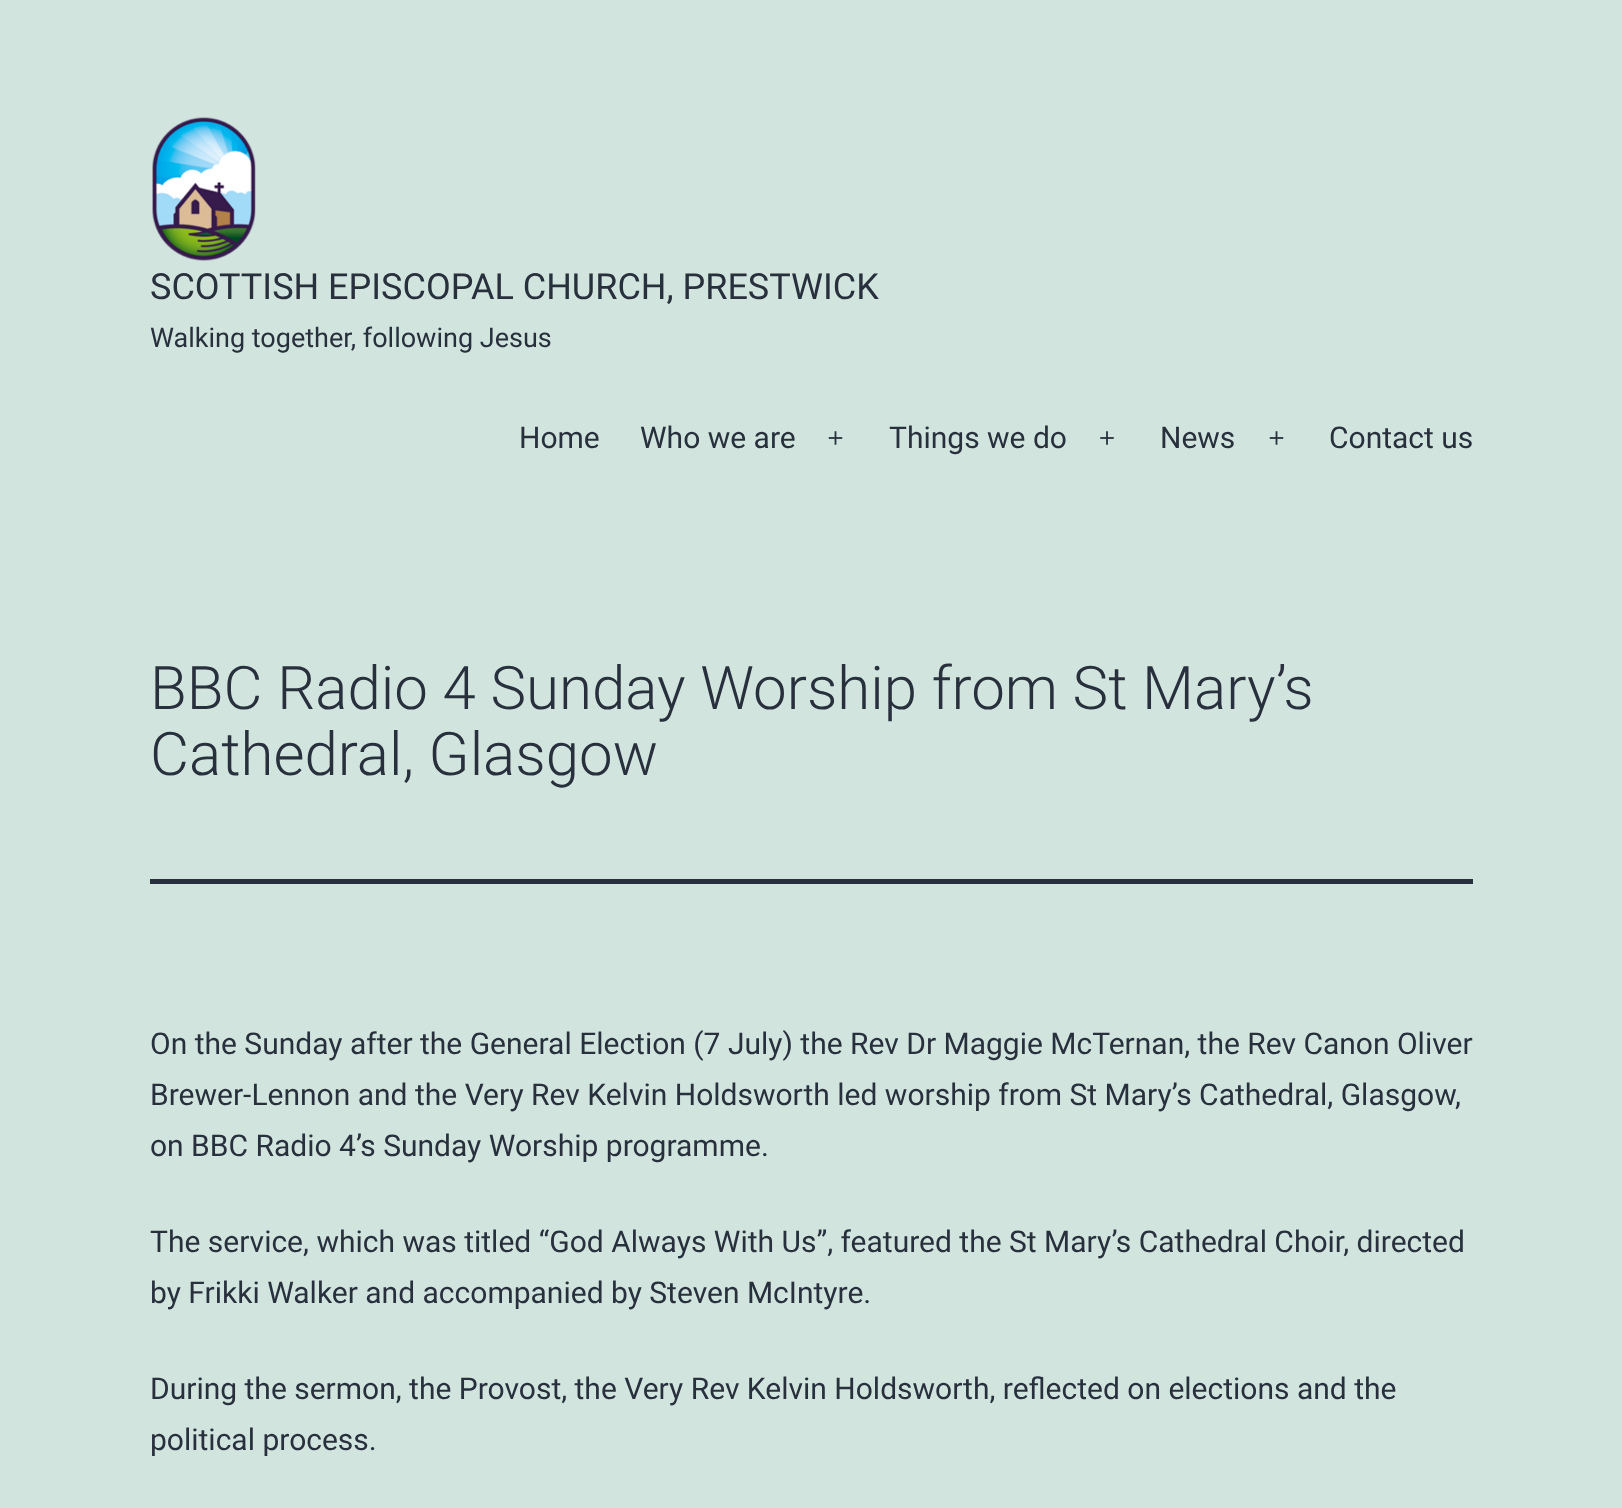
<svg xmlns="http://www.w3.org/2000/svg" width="1622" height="1508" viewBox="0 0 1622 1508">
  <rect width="100%" height="100%" fill="#d1e4dd"/>
  <image x="152" y="117" width="104" height="144" href="img/1.png"/>
  <image x="828" y="431" width="15" height="14" href="img/2.png"/>
  <image x="1100" y="431" width="14" height="14" href="img/3.png"/>
  <image x="1269" y="431" width="15" height="14" href="img/2.png"/>
  <path d="M150 879h1323v5H150z" fill="#28303d"/>
  <text x="150" y="299" font-family="Roboto" font-size="36" fill="#28303d">SCOTTISH EPISCOPAL CHURCH, PRESTWICK</text>
  <text x="150" y="347" font-family="Roboto" font-size="27" fill="#28303d">Walking together, following Jesus</text>
  <g font-family="Roboto" font-size="30" fill="#28303d">
    <text x="519" y="448">Home</text>
    <text x="640" y="448">Who we are</text>
    <text x="889" y="448">Things we do</text>
    <text x="1160" y="448">News</text>
    <text x="1329" y="448">Contact us</text>
  </g>
  <g font-family="Roboto" font-size="60" font-weight="300" fill="#28303d">
    <text x="150" y="709">BBC Radio 4 Sunday Worship from St Mary’s</text>
    <text x="150" y="775">Cathedral, Glasgow</text>
  </g>
  <g font-family="Roboto" font-size="30" fill="#28303d">
    <text x="150" y="1054">On the Sunday after the General Election (7 July) the Rev Dr Maggie McTernan, the Rev Canon Oliver</text>
    <text x="150" y="1105">Brewer-Lennon and the Very Rev Kelvin Holdsworth led worship from St Mary’s Cathedral, Glasgow,</text>
    <text x="150" y="1156">on BBC Radio 4’s Sunday Worship programme.</text>
    <text x="150" y="1252">The service, which was titled “God Always With Us”, featured the St Mary’s Cathedral Choir, directed</text>
    <text x="150" y="1303">by Frikki Walker and accompanied by Steven McIntyre.</text>
    <text x="150" y="1399">During the sermon, the Provost, the Very Rev Kelvin Holdsworth, reflected on elections and the</text>
    <text x="150" y="1450">political process.</text>
  </g>
</svg>
